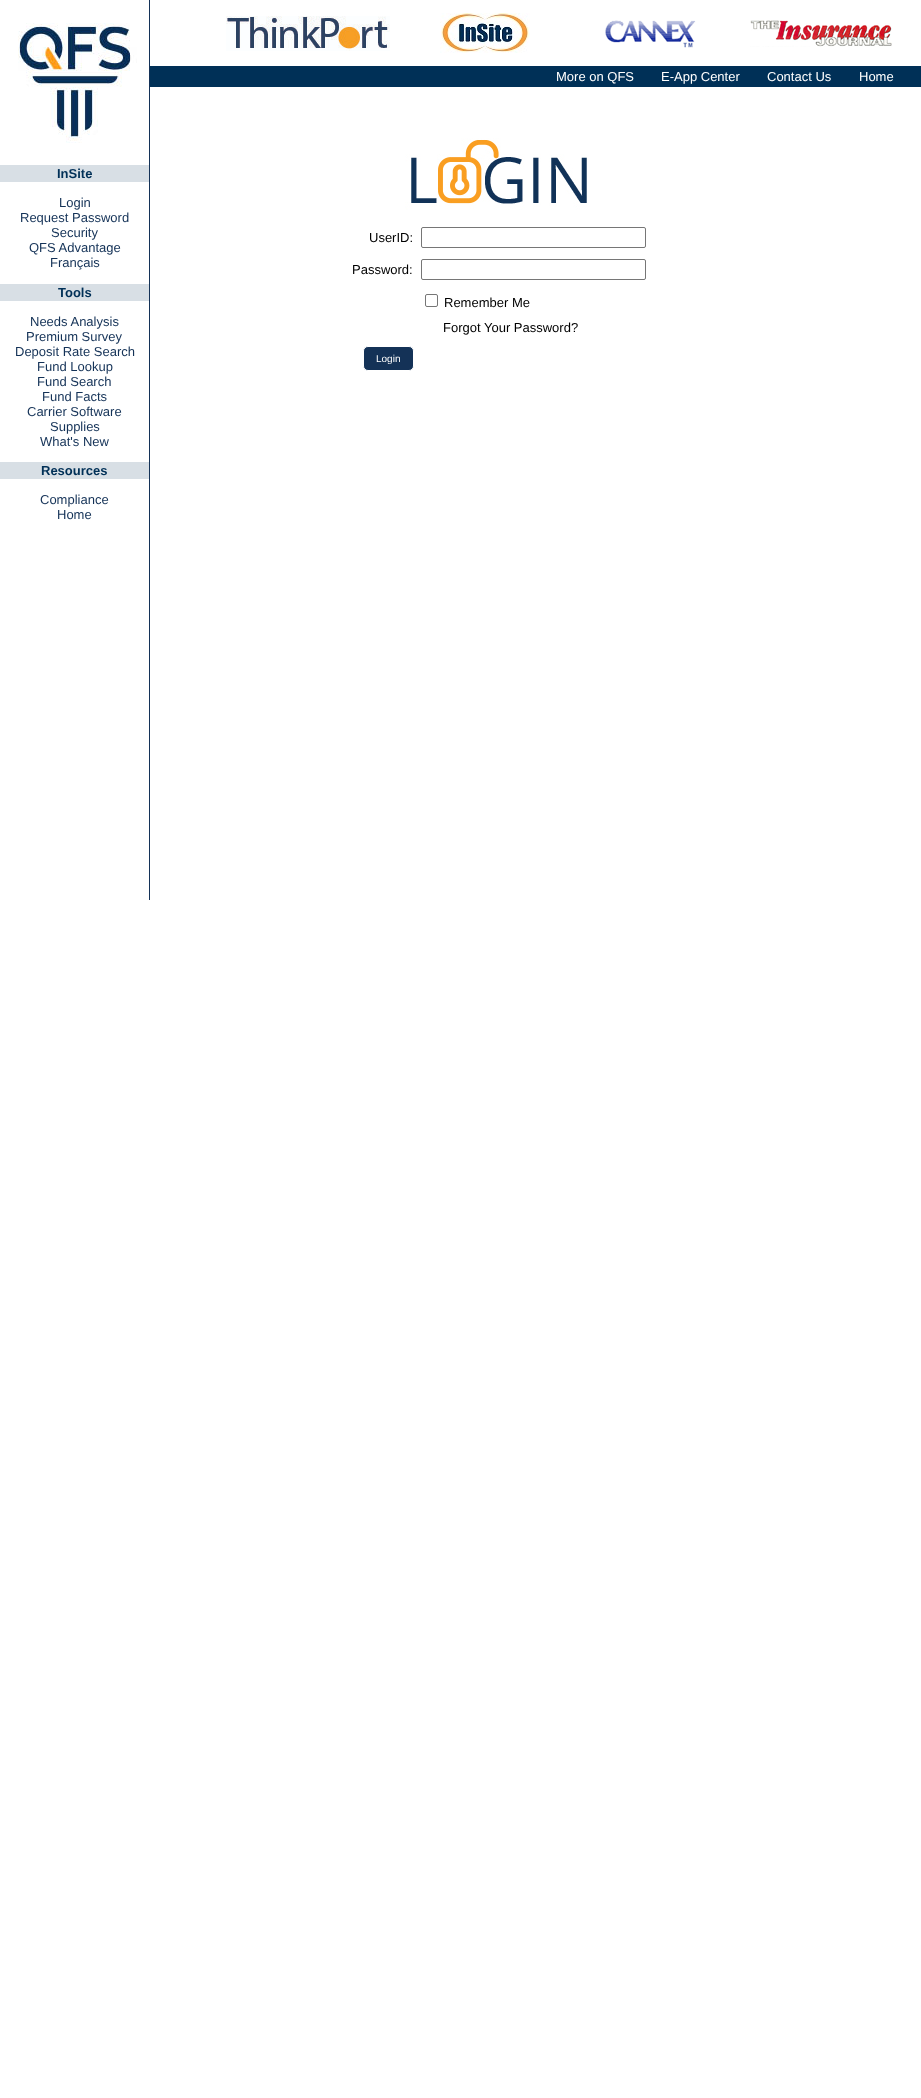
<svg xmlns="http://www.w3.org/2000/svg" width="921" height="2098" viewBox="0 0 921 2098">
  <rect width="100%" height="100%" fill="#fff"/>
  <image x="18" y="23" width="119" height="120" href="img/1.png"/>
  <path d="M0 165h149v17H0z" fill="#d8dfe5"/>
  <path d="M0 284h149v17H0z" fill="#d8dfe5"/>
  <path d="M0 462h149v17H0z" fill="#d8dfe5"/>
  <path d="M149 0h1v900H149z" fill="#143257"/>
  <image x="226" y="16" width="164" height="35" href="img/2.png"/>
  <image x="440" y="13" width="90" height="40" href="img/3.png"/>
  <image x="605" y="20" width="91" height="28" href="img/4.png"/>
  <image x="750" y="20" width="142" height="27" href="img/5.png"/>
  <path d="M150 66h771v21H150z" fill="#003057"/>
  <image x="349" y="130" width="300" height="90" href="img/6.png"/>
  <rect x="421.5" y="227.5" width="224" height="20" rx="1.5" fill="none" stroke="#767676"/>
  <rect x="421.5" y="259.5" width="224" height="20" rx="1.5" fill="none" stroke="#767676"/>
  <rect x="425.5" y="294.5" width="12" height="12" rx="1.5" fill="none" stroke="#767676"/>
  <rect x="363.5" y="346.5" width="50" height="24" rx="4.5" fill="#143257" stroke="#fff"/>
  <text x="57" y="178" font-family="Liberation Sans" font-size="13" font-weight="bold" fill="#003057">InSite</text>
  <g font-family="Liberation Sans" font-size="13" fill="#143257">
    <text x="59" y="207">Login</text>
    <text x="20" y="222">Request Password</text>
    <text x="51" y="237">Security</text>
    <text x="29" y="252">QFS Advantage</text>
    <text x="50" y="267">Français</text>
  </g>
  <text x="58" y="297" font-family="Liberation Sans" font-size="13" font-weight="bold" fill="#003057">Tools</text>
  <g font-family="Liberation Sans" font-size="13" fill="#143257">
    <text x="30" y="326">Needs Analysis</text>
    <text x="26" y="341">Premium Survey</text>
    <text x="15" y="356">Deposit Rate Search</text>
    <text x="37" y="371">Fund Lookup</text>
    <text x="37" y="386">Fund Search</text>
    <text x="42" y="401">Fund Facts</text>
    <text x="27" y="416">Carrier Software</text>
    <text x="50" y="431">Supplies</text>
    <text x="40" y="446">What's New</text>
  </g>
  <text x="41" y="475" font-family="Liberation Sans" font-size="13" font-weight="bold" fill="#003057">Resources</text>
  <g font-family="Liberation Sans" font-size="13" fill="#143257">
    <text x="40" y="504">Compliance</text>
    <text x="57" y="519">Home</text>
  </g>
  <g font-family="Liberation Sans" font-size="13" fill="#fff">
    <text x="556" y="81">More on QFS</text>
    <text x="661" y="81">E-App Center</text>
    <text x="767" y="81">Contact Us</text>
    <text x="859" y="81">Home</text>
  </g>
  <g font-family="Liberation Sans" font-size="13" fill="#000">
    <text x="369" y="242">UserID:</text>
    <text x="352" y="274">Password:</text>
    <text x="444" y="307">Remember Me</text>
    <text x="443" y="332">Forgot Your Password?</text>
  </g>
  <text x="376" y="362" font-family="Liberation Sans" font-size="10" fill="#fff">Login</text>
</svg>
